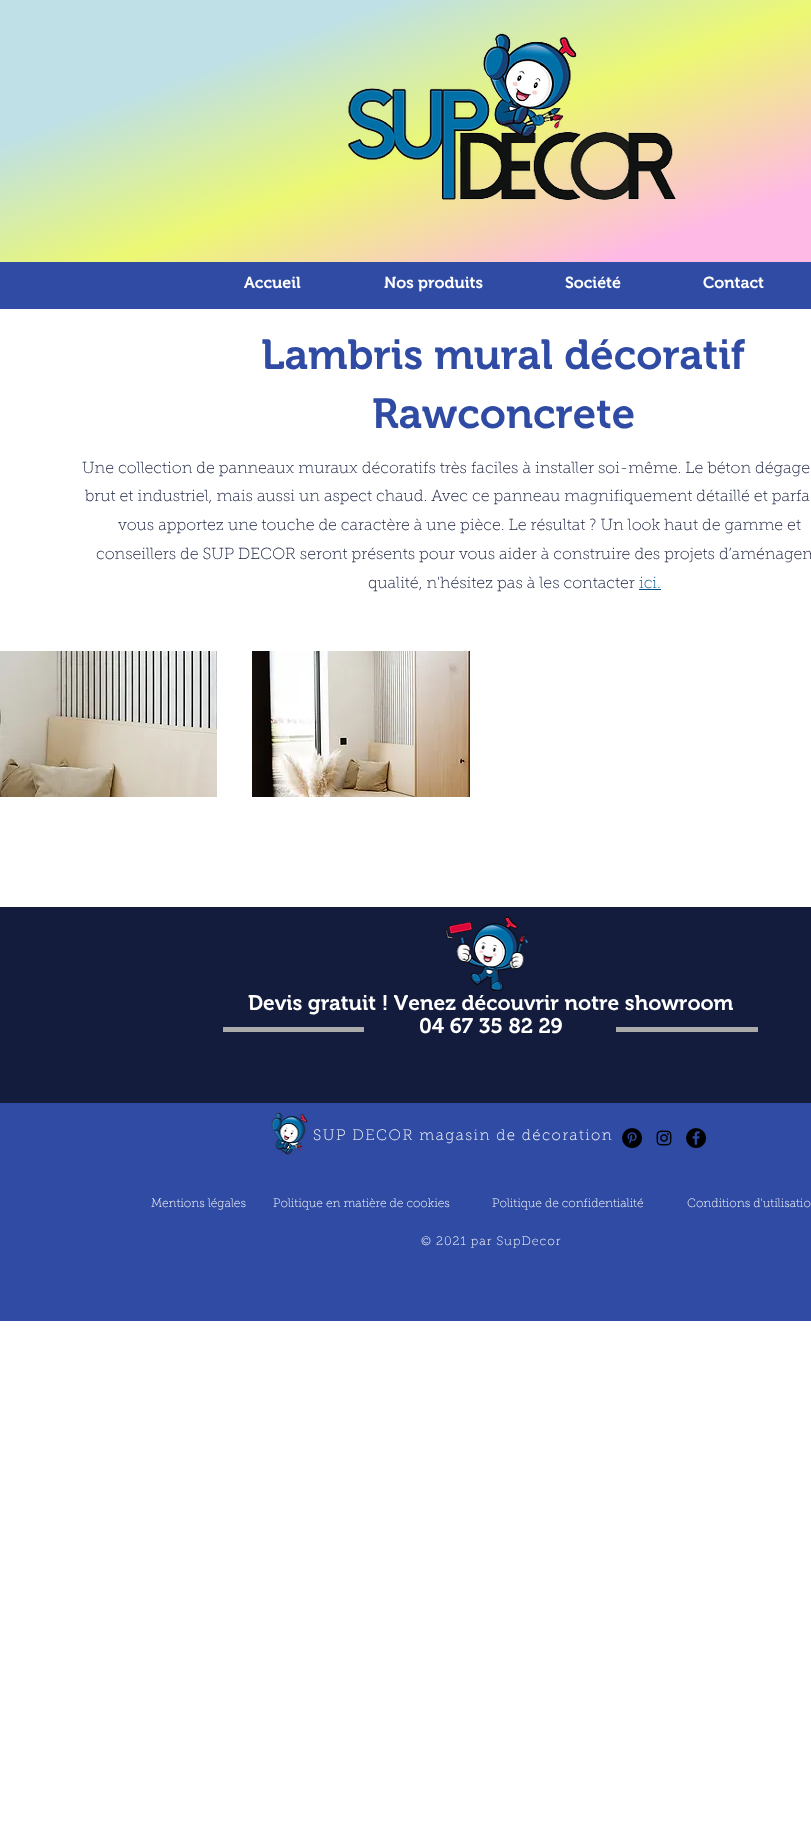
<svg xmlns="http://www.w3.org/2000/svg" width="811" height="1835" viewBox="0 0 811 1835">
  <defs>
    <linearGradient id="g1" gradientUnits="userSpaceOnUse" x1="589" y1="404" x2="391" y2="-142"><stop offset="0.22" stop-color="#ffb9e5"/><stop offset="0.51" stop-color="#ecf872"/><stop offset="0.77" stop-color="#bee0e6"/></linearGradient>
  </defs>
  <rect width="100%" height="100%" fill="#fff"/>
  <path d="M0 262h811v47H0z" fill="#2f4ba3"/>
  <path d="M0 0h811v262H0z" fill="url(#g1)"/>
  <image x="346" y="33" width="330" height="167" href="img/1.png"/>
  <path d="M639 589h22v1H639z" fill="#045184"/>
  <image x="0" y="651" width="217" height="146" href="img/2.png"/>
  <path d="M469 651h1v146H469z" fill="#2f2e2e"/>
  <image x="252" y="651" width="217" height="146" href="img/3.png"/>
  <path d="M0 907h811v196H0z" fill="#131c3c"/>
  <image x="445" y="916" width="84" height="75" href="img/4.png"/>
  <path d="M223 1027h141v5H223z" fill="#aaa"/>
  <path d="M616 1027h142v5H616z" fill="#aaa"/>
  <path d="M0 1103h811v218H0z" fill="#2f4ba3"/>
  <image x="271" y="1112" width="37" height="43" href="img/5.png"/>
  <image x="622" y="1128" width="20" height="20" href="img/6.png"/>
  <image x="656" y="1130" width="16" height="16" href="img/7.png"/>
  <image x="686" y="1128" width="20" height="20" href="img/8.png"/>
  <g font-family="'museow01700'" font-size="16" font-weight="600" fill="#fff">
    <text x="244" y="288">Accueil</text>
    <text x="384" y="288">Nos produits</text>
    <text x="565" y="288">Société</text>
    <text x="703" y="288">Contact</text>
  </g>
  <g font-family="'museow01700'" font-size="42" font-weight="600" fill="#2f4ba3">
    <text x="261" y="369">Lambris mural décoratif</text>
    <text x="372" y="428">Rawconcrete</text>
  </g>
  <g font-family="'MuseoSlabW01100'" font-size="16" font-weight="100" fill="#131c3c">
    <text x="82" y="473">Une collection de panneaux muraux décoratifs très faciles à installer soi-même. Le béton dégage</text>
    <text x="85" y="501">brut et industriel, mais aussi un aspect chaud. Avec ce panneau magnifiquement détaillé et parfa</text>
    <text x="118" y="530">vous apportez une touche de caractère à une pièce. Le résultat ? Un look haut de gamme et</text>
    <text x="96" y="559">conseillers de SUP DECOR seront présents pour vous aider à construire des projets d’aménagem</text>
    <text x="368" y="588">qualité, n'hésitez pas à les contacter</text>
  </g>
  <text x="639" y="588" font-family="'MuseoSlabW01100'" font-size="16" font-weight="100" fill="#045184">ici.</text>
  <g font-family="'museow01700'" font-size="21" font-weight="600" fill="#fff">
    <text x="248" y="1010">Devis gratuit ! Venez découvrir notre showroom</text>
    <text x="419" y="1033">04 67 35 82 29</text>
  </g>
  <text x="313" y="1140" font-family="'MuseoSlabW01100'" font-size="15" font-weight="100" letter-spacing="1.5" fill="#fff">SUP DECOR magasin de décoration</text>
  <g font-family="'MuseoSlabW01100'" font-size="12" font-weight="100" fill="#fff">
    <text x="151" y="1207">Mentions légales</text>
    <text x="273" y="1207">Politique en matière de cookies</text>
    <text x="492" y="1207">Politique de confidentialité</text>
    <text x="687" y="1207">Conditions d'utilisatio</text>
  </g>
  <text x="421" y="1245" font-family="'MuseoSlabW01100'" font-size="12.25" font-weight="100" letter-spacing="1" fill="#fff">© 2021 par SupDecor</text>
</svg>
